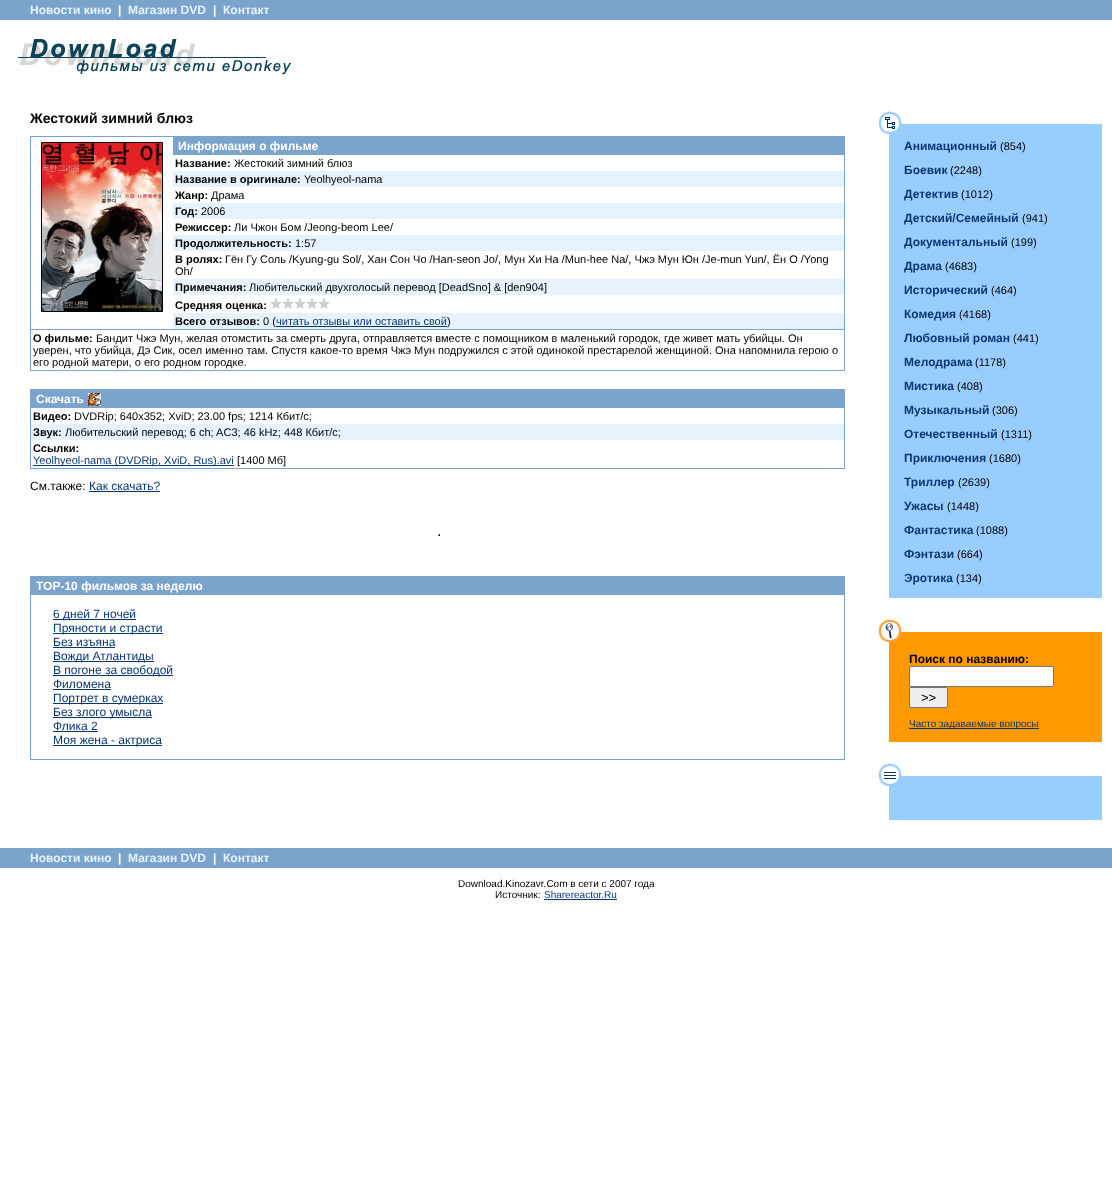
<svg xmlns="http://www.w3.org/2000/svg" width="1112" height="1200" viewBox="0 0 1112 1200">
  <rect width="100%" height="100%" fill="#fff"/>
  <path d="M0 0h1112v20H0z" fill="#7ba4cd"/>
  <image x="18" y="39" width="273" height="36" href="img/1.png"/>
  <path d="M30 136h815v235H30z" fill="#7ba4cd"/>
  <path d="M31 137h813v233H31z" fill="#fff"/>
  <path d="M41.5 142.5h121v169H41.5z" fill="none" stroke="#000"/>
  <image x="42" y="143" width="120" height="168" href="img/2.png"/>
  <path d="M173 137h671v18H173z" fill="#7ba4cd"/>
  <path d="M173 171h671v16H173z" fill="#e6f3ff"/>
  <path d="M173 203h671v16H173z" fill="#e6f3ff"/>
  <path d="M173 235h671v16H173z" fill="#e6f3ff"/>
  <path d="M173 279h671v16H173z" fill="#e6f3ff"/>
  <image x="270" y="298" width="12" height="11" href="img/3.png"/>
  <image x="282" y="298" width="12" height="11" href="img/3.png"/>
  <image x="294" y="298" width="12" height="11" href="img/3.png"/>
  <image x="306" y="298" width="12" height="11" href="img/3.png"/>
  <image x="318" y="298" width="12" height="11" href="img/3.png"/>
  <path d="M173 313h671v16H173z" fill="#e6f3ff"/>
  <path d="M276 326h171v1H276z" fill="#083772"/>
  <path d="M31 329h813v1H31z" fill="#7ba4cd"/>
  <path d="M30 389h815v80H30z" fill="#7ba4cd"/>
  <path d="M31 408h813v60H31z" fill="#fff"/>
  <image x="88" y="393" width="13" height="13" href="img/4.png"/>
  <path d="M31 424h813v16H31z" fill="#e6f3ff"/>
  <path d="M33 465h201v1H33z" fill="#083772"/>
  <path d="M89 491h71v1H89z" fill="#083772"/>
  <path d="M30 576h815v184H30z" fill="#7ba4cd"/>
  <path d="M31 595h813v164H31z" fill="#fff"/>
  <path d="M53 619h83v1H53z" fill="#083772"/>
  <path d="M53 633h110v1H53z" fill="#083772"/>
  <path d="M53 647h62v1H53z" fill="#083772"/>
  <path d="M53 661h101v1H53z" fill="#083772"/>
  <path d="M53 675h120v1H53z" fill="#083772"/>
  <path d="M53 689h58v1H53z" fill="#083772"/>
  <path d="M53 703h110v1H53z" fill="#083772"/>
  <path d="M53 717h99v1H53z" fill="#083772"/>
  <path d="M53 731h45v1H53z" fill="#083772"/>
  <path d="M53 745h109v1H53z" fill="#083772"/>
  <image x="878" y="111" width="24" height="23" href="img/5.png"/>
  <path d="M902 124h200v10H902z" fill="#9cf"/>
  <path d="M889 134h213v461H889z" fill="#9cf"/>
  <path d="M889 595h213v3H889z" fill="#9cf"/>
  <image x="878" y="619" width="24" height="23" href="img/6.png"/>
  <path d="M902 632h200v10H902z" fill="#f90"/>
  <path d="M889 642h213v97H889z" fill="#f90"/>
  <rect x="909.5" y="666.5" width="144" height="20" rx="1.5" fill="#fff" stroke="#767676"/>
  <rect x="909.5" y="687.5" width="38" height="20" rx="1.5" fill="#efefef" stroke="#767676"/>
  <path d="M909 728h130v1H909z" fill="#083772"/>
  <path d="M889 739h213v3H889z" fill="#f90"/>
  <image x="878" y="763" width="24" height="23" href="img/7.png"/>
  <path d="M902 776h200v10H902z" fill="#9cf"/>
  <path d="M889 786h213v31H889z" fill="#9cf"/>
  <path d="M889 817h213v3H889z" fill="#9cf"/>
  <path d="M0 848h1112v20H0z" fill="#7ba4cd"/>
  <path d="M544 899h73v1H544z" fill="#083772"/>
  <text x="30" y="14" font-family="Liberation Sans" font-size="12" font-weight="bold" fill="#e6f3ff">Новости кино</text>
  <text x="118" y="14" font-family="Liberation Sans" font-size="12" font-weight="bold" fill="#fff">|</text>
  <text x="128" y="14" font-family="Liberation Sans" font-size="12" font-weight="bold" fill="#e6f3ff">Магазин DVD</text>
  <text x="213" y="14" font-family="Liberation Sans" font-size="12" font-weight="bold" fill="#fff">|</text>
  <text x="223" y="14" font-family="Liberation Sans" font-size="12" font-weight="bold" fill="#e6f3ff">Контакт</text>
  <text x="30" y="123" font-family="Liberation Sans" font-size="14" font-weight="bold" fill="#000">Жестокий зимний блюз</text>
  <text x="178" y="150" font-family="Liberation Sans" font-size="12" font-weight="bold" fill="#fff">Информация о фильме</text>
  <text x="175" y="167" font-family="Liberation Sans" font-size="11" font-weight="bold" fill="#000">Название:</text>
  <text x="234" y="167" font-family="Liberation Sans" font-size="11" fill="#000">Жестокий зимний блюз</text>
  <text x="175" y="183" font-family="Liberation Sans" font-size="11" font-weight="bold" fill="#000">Название в оригинале:</text>
  <text x="304" y="183" font-family="Liberation Sans" font-size="11" fill="#000">Yeolhyeol-nama</text>
  <text x="175" y="199" font-family="Liberation Sans" font-size="11" font-weight="bold" fill="#000">Жанр:</text>
  <text x="211" y="199" font-family="Liberation Sans" font-size="11" fill="#000">Драма</text>
  <text x="175" y="215" font-family="Liberation Sans" font-size="11" font-weight="bold" fill="#000">Год:</text>
  <text x="201" y="215" font-family="Liberation Sans" font-size="11" fill="#000">2006</text>
  <text x="175" y="231" font-family="Liberation Sans" font-size="11" font-weight="bold" fill="#000">Режиссер:</text>
  <text x="234" y="231" font-family="Liberation Sans" font-size="11" fill="#000">Ли Чжон Бом /Jeong-beom Lee/</text>
  <text x="175" y="247" font-family="Liberation Sans" font-size="11" font-weight="bold" fill="#000">Продолжительность:</text>
  <text x="295" y="247" font-family="Liberation Sans" font-size="11" fill="#000">1:57</text>
  <text x="175" y="263" font-family="Liberation Sans" font-size="11" font-weight="bold" fill="#000">В ролях:</text>
  <g font-family="Liberation Sans" font-size="11" fill="#000">
    <text x="225" y="263">Гён Гу Соль /Kyung-gu Sol/, Хан Сон Чо /Han-seon Jo/, Мун Хи На /Mun-hee Na/, Чжэ Мун Юн /Je-mun Yun/, Ён О /Yong</text>
    <text x="175" y="275">Oh/</text>
  </g>
  <text x="175" y="291" font-family="Liberation Sans" font-size="11" font-weight="bold" fill="#000">Примечания:</text>
  <text x="249" y="291" font-family="Liberation Sans" font-size="11" fill="#000">Любительский двухголосый перевод [DeadSno] &amp; [den904]</text>
  <g font-family="Liberation Sans" font-size="11" font-weight="bold" fill="#000">
    <text x="175" y="309">Средняя оценка:</text>
    <text x="175" y="325">Всего отзывов:</text>
  </g>
  <text x="263" y="325" font-family="Liberation Sans" font-size="11" fill="#000">0 (</text>
  <text x="276" y="325" font-family="Liberation Sans" font-size="11" fill="#083772">читать отзывы или оставить свой</text>
  <text x="447" y="325" font-family="Liberation Sans" font-size="11" fill="#000">)</text>
  <text x="33" y="342" font-family="Liberation Sans" font-size="11" font-weight="bold" fill="#000">О фильме:</text>
  <g font-family="Liberation Sans" font-size="11" fill="#000">
    <text x="96" y="342">Бандит Чжэ Мун, желая отомстить за смерть друга, отправляется вместе с помощником в маленький городок, где живет мать убийцы. Он</text>
    <text x="33" y="354">уверен, что убийца, Дэ Сик, осел именно там. Спустя какое-то время Чжэ Мун подружился с этой одинокой престарелой женщиной. Она напомнила герою о</text>
    <text x="33" y="366">его родной матери, о его родном городке.</text>
  </g>
  <text x="36" y="403" font-family="Liberation Sans" font-size="12" font-weight="bold" fill="#fff">Скачать</text>
  <text x="33" y="420" font-family="Liberation Sans" font-size="11" font-weight="bold" fill="#000">Видео:</text>
  <text x="74" y="420" font-family="Liberation Sans" font-size="11" fill="#000">DVDRip; 640x352; XviD; 23.00 fps; 1214 Кбит/с;</text>
  <text x="33" y="436" font-family="Liberation Sans" font-size="11" font-weight="bold" fill="#000">Звук:</text>
  <text x="65" y="436" font-family="Liberation Sans" font-size="11" fill="#000">Любительский перевод; 6 ch; AC3; 46 kHz; 448 Кбит/с;</text>
  <text x="33" y="452" font-family="Liberation Sans" font-size="11" font-weight="bold" fill="#000">Ссылки:</text>
  <text x="33" y="464" font-family="Liberation Sans" font-size="11" fill="#083772">Yeolhyeol-nama (DVDRip, XviD, Rus).avi</text>
  <text x="237" y="464" font-family="Liberation Sans" font-size="11" fill="#000">[1400 Мб]</text>
  <text x="30" y="490" font-family="Liberation Sans" font-size="12" fill="#000">См.также:</text>
  <text x="89" y="490" font-family="Liberation Sans" font-size="12" fill="#083772">Как скачать?</text>
  <text x="437" y="536" font-family="Liberation Sans" font-size="16" fill="#000">.</text>
  <text x="36" y="590" font-family="Liberation Sans" font-size="12" font-weight="bold" fill="#fff">TOP-10 фильмов за неделю</text>
  <g font-family="Liberation Sans" font-size="12" fill="#083772">
    <text x="53" y="618">6 дней 7 ночей</text>
    <text x="53" y="632">Пряности и страсти</text>
    <text x="53" y="646">Без изъяна</text>
    <text x="53" y="660">Вожди Атлантиды</text>
    <text x="53" y="674">В погоне за свободой</text>
    <text x="53" y="688">Филомена</text>
    <text x="53" y="702">Портрет в сумерках</text>
    <text x="53" y="716">Без злого умысла</text>
    <text x="53" y="730">Флика 2</text>
    <text x="53" y="744">Моя жена - актриса</text>
  </g>
  <text x="904" y="150" font-family="Liberation Sans" font-size="12" font-weight="bold" fill="#083772">Анимационный</text>
  <text x="1000" y="150" font-family="Liberation Sans" font-size="11" fill="#000">(854)</text>
  <text x="904" y="174" font-family="Liberation Sans" font-size="12" font-weight="bold" fill="#083772">Боевик</text>
  <text x="950" y="174" font-family="Liberation Sans" font-size="11" fill="#000">(2248)</text>
  <text x="904" y="198" font-family="Liberation Sans" font-size="12" font-weight="bold" fill="#083772">Детектив</text>
  <text x="961" y="198" font-family="Liberation Sans" font-size="11" fill="#000">(1012)</text>
  <text x="904" y="222" font-family="Liberation Sans" font-size="12" font-weight="bold" fill="#083772">Детский/Семейный</text>
  <text x="1022" y="222" font-family="Liberation Sans" font-size="11" fill="#000">(941)</text>
  <text x="904" y="246" font-family="Liberation Sans" font-size="12" font-weight="bold" fill="#083772">Документальный</text>
  <text x="1011" y="246" font-family="Liberation Sans" font-size="11" fill="#000">(199)</text>
  <text x="904" y="270" font-family="Liberation Sans" font-size="12" font-weight="bold" fill="#083772">Драма</text>
  <text x="945" y="270" font-family="Liberation Sans" font-size="11" fill="#000">(4683)</text>
  <text x="904" y="294" font-family="Liberation Sans" font-size="12" font-weight="bold" fill="#083772">Исторический</text>
  <text x="991" y="294" font-family="Liberation Sans" font-size="11" fill="#000">(464)</text>
  <text x="904" y="318" font-family="Liberation Sans" font-size="12" font-weight="bold" fill="#083772">Комедия</text>
  <text x="959" y="318" font-family="Liberation Sans" font-size="11" fill="#000">(4168)</text>
  <text x="904" y="342" font-family="Liberation Sans" font-size="12" font-weight="bold" fill="#083772">Любовный роман</text>
  <text x="1013" y="342" font-family="Liberation Sans" font-size="11" fill="#000">(441)</text>
  <text x="904" y="366" font-family="Liberation Sans" font-size="12" font-weight="bold" fill="#083772">Мелодрама</text>
  <text x="975" y="366" font-family="Liberation Sans" font-size="11" fill="#000">(1178)</text>
  <text x="904" y="390" font-family="Liberation Sans" font-size="12" font-weight="bold" fill="#083772">Мистика</text>
  <text x="957" y="390" font-family="Liberation Sans" font-size="11" fill="#000">(408)</text>
  <text x="904" y="414" font-family="Liberation Sans" font-size="12" font-weight="bold" fill="#083772">Музыкальный</text>
  <text x="992" y="414" font-family="Liberation Sans" font-size="11" fill="#000">(306)</text>
  <text x="904" y="438" font-family="Liberation Sans" font-size="12" font-weight="bold" fill="#083772">Отечественный</text>
  <text x="1001" y="438" font-family="Liberation Sans" font-size="11" fill="#000">(1311)</text>
  <text x="904" y="462" font-family="Liberation Sans" font-size="12" font-weight="bold" fill="#083772">Приключения</text>
  <text x="989" y="462" font-family="Liberation Sans" font-size="11" fill="#000">(1680)</text>
  <text x="904" y="486" font-family="Liberation Sans" font-size="12" font-weight="bold" fill="#083772">Триллер</text>
  <text x="958" y="486" font-family="Liberation Sans" font-size="11" fill="#000">(2639)</text>
  <text x="904" y="510" font-family="Liberation Sans" font-size="12" font-weight="bold" fill="#083772">Ужасы</text>
  <text x="947" y="510" font-family="Liberation Sans" font-size="11" fill="#000">(1448)</text>
  <text x="904" y="534" font-family="Liberation Sans" font-size="12" font-weight="bold" fill="#083772">Фантастика</text>
  <text x="976" y="534" font-family="Liberation Sans" font-size="11" fill="#000">(1088)</text>
  <text x="904" y="558" font-family="Liberation Sans" font-size="12" font-weight="bold" fill="#083772">Фэнтази</text>
  <text x="957" y="558" font-family="Liberation Sans" font-size="11" fill="#000">(664)</text>
  <text x="904" y="582" font-family="Liberation Sans" font-size="12" font-weight="bold" fill="#083772">Эротика</text>
  <text x="956" y="582" font-family="Liberation Sans" font-size="11" fill="#000">(134)</text>
  <text x="909" y="663" font-family="Liberation Sans" font-size="12" font-weight="bold" fill="#000">Поиск по названию:</text>
  <text x="921" y="702" font-family="Liberation Sans" font-size="13" fill="#000">&gt;&gt;</text>
  <text x="909" y="727" font-family="Liberation Sans" font-size="10" fill="#083772">Часто задаваемые вопросы</text>
  <text x="30" y="862" font-family="Liberation Sans" font-size="12" font-weight="bold" fill="#e6f3ff">Новости кино</text>
  <text x="118" y="862" font-family="Liberation Sans" font-size="12" font-weight="bold" fill="#fff">|</text>
  <text x="128" y="862" font-family="Liberation Sans" font-size="12" font-weight="bold" fill="#e6f3ff">Магазин DVD</text>
  <text x="213" y="862" font-family="Liberation Sans" font-size="12" font-weight="bold" fill="#fff">|</text>
  <text x="223" y="862" font-family="Liberation Sans" font-size="12" font-weight="bold" fill="#e6f3ff">Контакт</text>
  <g font-family="Liberation Sans" font-size="10" fill="#000">
    <text x="458" y="887">Download.Kinozavr.Com в сети с 2007 года</text>
    <text x="495" y="898">Источник:</text>
  </g>
  <text x="544" y="898" font-family="Liberation Sans" font-size="10" fill="#083772">Sharereactor.Ru</text>
</svg>
